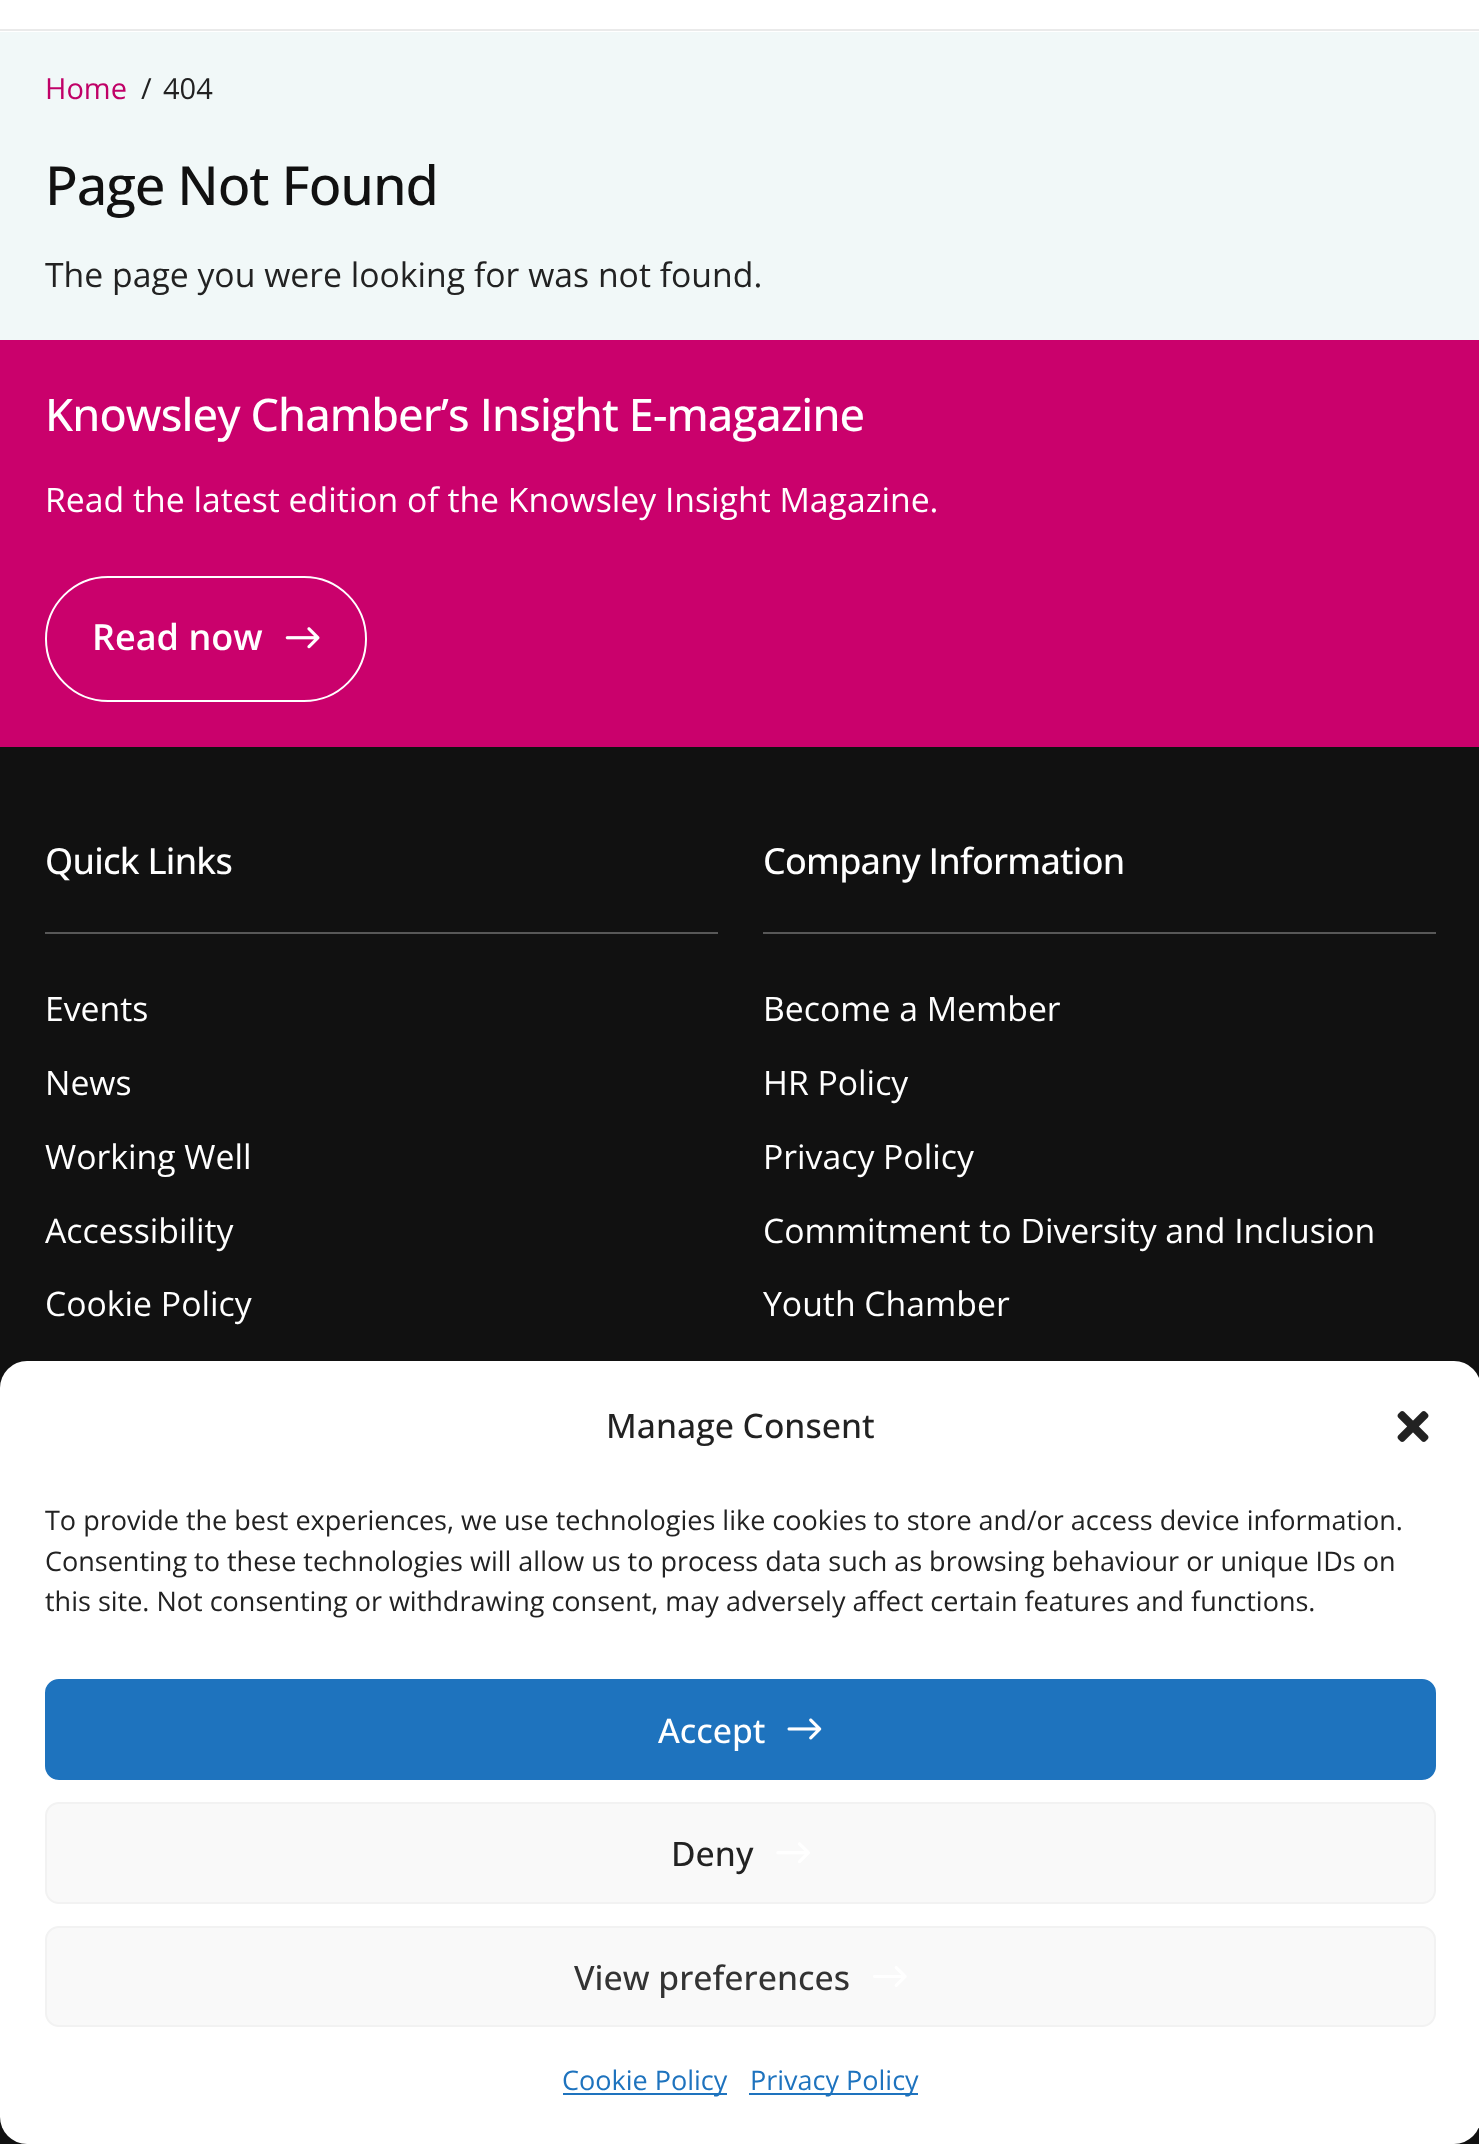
<svg xmlns="http://www.w3.org/2000/svg" width="1479" height="2144" viewBox="0 0 1479 2144">
  <rect width="100%" height="100%" fill="#f1f8f8"/>
  <path d="M0 0h1479v32H0z" fill="#fff"/>
  <path d="M0 29h1479v2H0z" fill="#eaeaea"/>
  <path d="M0 340h1479v407H0z" fill="#ca016c"/>
  <rect x="46" y="577" width="320" height="124" rx="62" fill="none" stroke="#fff" stroke-width="2"/>
  <image x="285" y="627" width="35" height="22" href="img/1.png"/>
  <path d="M0 747h1479v1397H0z" fill="#111"/>
  <path d="M45 932h673v2H45z" fill="#585858"/>
  <path d="M763 932h673v2H763z" fill="#585858"/>
  <rect y="1361" width="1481" height="783" rx="27" fill="#fff"/>
  <image x="1397" y="1411" width="32" height="31" href="img/2.png"/>
  <rect x="46" y="1680" width="1389" height="99" rx="13" fill="#1e73be" stroke="#1e73be" stroke-width="2"/>
  <image x="787" y="1718" width="35" height="22" href="img/3.png"/>
  <rect x="46" y="1803" width="1389" height="100" rx="13" fill="#f9f9f9" stroke="#f2f2f2" stroke-width="2"/>
  <image x="776" y="1842" width="34" height="21" href="img/4.png"/>
  <rect x="46" y="1927" width="1389" height="99" rx="13" fill="#f9f9f9" stroke="#f2f2f2" stroke-width="2"/>
  <image x="873" y="1966" width="34" height="21" href="img/5.png"/>
  <path d="M563 2093h164v2H563z" fill="#1e73be"/>
  <path d="M749 2093h169v2H749z" fill="#1e73be"/>
  <text x="45" y="99" font-family="Open Sans" font-size="29" fill="#c00167">Home</text>
  <g font-family="Open Sans" font-size="29" fill="#222">
    <text x="141" y="99">/</text>
    <text x="163" y="99">404</text>
  </g>
  <text x="45" y="205" font-family="Open Sans" font-size="54" font-weight="500" letter-spacing="-1.1" fill="#111">Page Not Found</text>
  <text x="45" y="287" font-family="Open Sans" font-size="33.75" fill="#222">The page you were looking for was not found.</text>
  <text x="45" y="431" font-family="Open Sans" font-size="45" font-weight="500" letter-spacing="-0.9" fill="#fff">Knowsley Chamber’s Insight E-magazine</text>
  <text x="45" y="512" font-family="Open Sans" font-size="33.75" fill="#fff">Read the latest edition of the Knowsley Insight Magazine.</text>
  <text x="92" y="650" font-family="Open Sans" font-size="36" font-weight="600" fill="#fff">Read now</text>
  <text x="45" y="874" font-family="Open Sans" font-size="36" font-weight="500" letter-spacing="-0.75" fill="#fff">Quick Links</text>
  <g font-family="Open Sans" font-size="33.75" fill="#fff">
    <text x="45" y="1021">Events</text>
    <text x="45" y="1095">News</text>
    <text x="45" y="1169">Working Well</text>
    <text x="45" y="1243">Accessibility</text>
    <text x="45" y="1316">Cookie Policy</text>
  </g>
  <text x="763" y="874" font-family="Open Sans" font-size="36" font-weight="500" letter-spacing="-0.75" fill="#fff">Company Information</text>
  <g font-family="Open Sans" font-size="33.75" fill="#fff">
    <text x="763" y="1021">Become a Member</text>
    <text x="763" y="1095">HR Policy</text>
    <text x="763" y="1169">Privacy Policy</text>
    <text x="763" y="1243">Commitment to Diversity and Inclusion</text>
    <text x="763" y="1316">Youth Chamber</text>
  </g>
  <text x="606" y="1438" font-family="Open Sans" font-size="33.75" font-weight="500" fill="#222">Manage Consent</text>
  <g font-family="Open Sans" font-size="27" fill="#222">
    <text x="45" y="1530">To provide the best experiences, we use technologies like cookies to store and/or access device information.</text>
    <text x="45" y="1571">Consenting to these technologies will allow us to process data such as browsing behaviour or unique IDs on</text>
    <text x="45" y="1611">this site. Not consenting or withdrawing consent, may adversely affect certain features and functions.</text>
  </g>
  <text x="658" y="1743" font-family="Open Sans" font-size="33.75" font-weight="500" fill="#fff">Accept</text>
  <text x="671" y="1866" font-family="Open Sans" font-size="33.75" font-weight="500" fill="#222">Deny</text>
  <text x="574" y="1990" font-family="Open Sans" font-size="33.75" font-weight="500" fill="#333">View preferences</text>
  <g font-family="Open Sans" font-size="27" fill="#1e73be">
    <text x="562" y="2090">Cookie Policy</text>
    <text x="750" y="2090">Privacy Policy</text>
  </g>
</svg>
